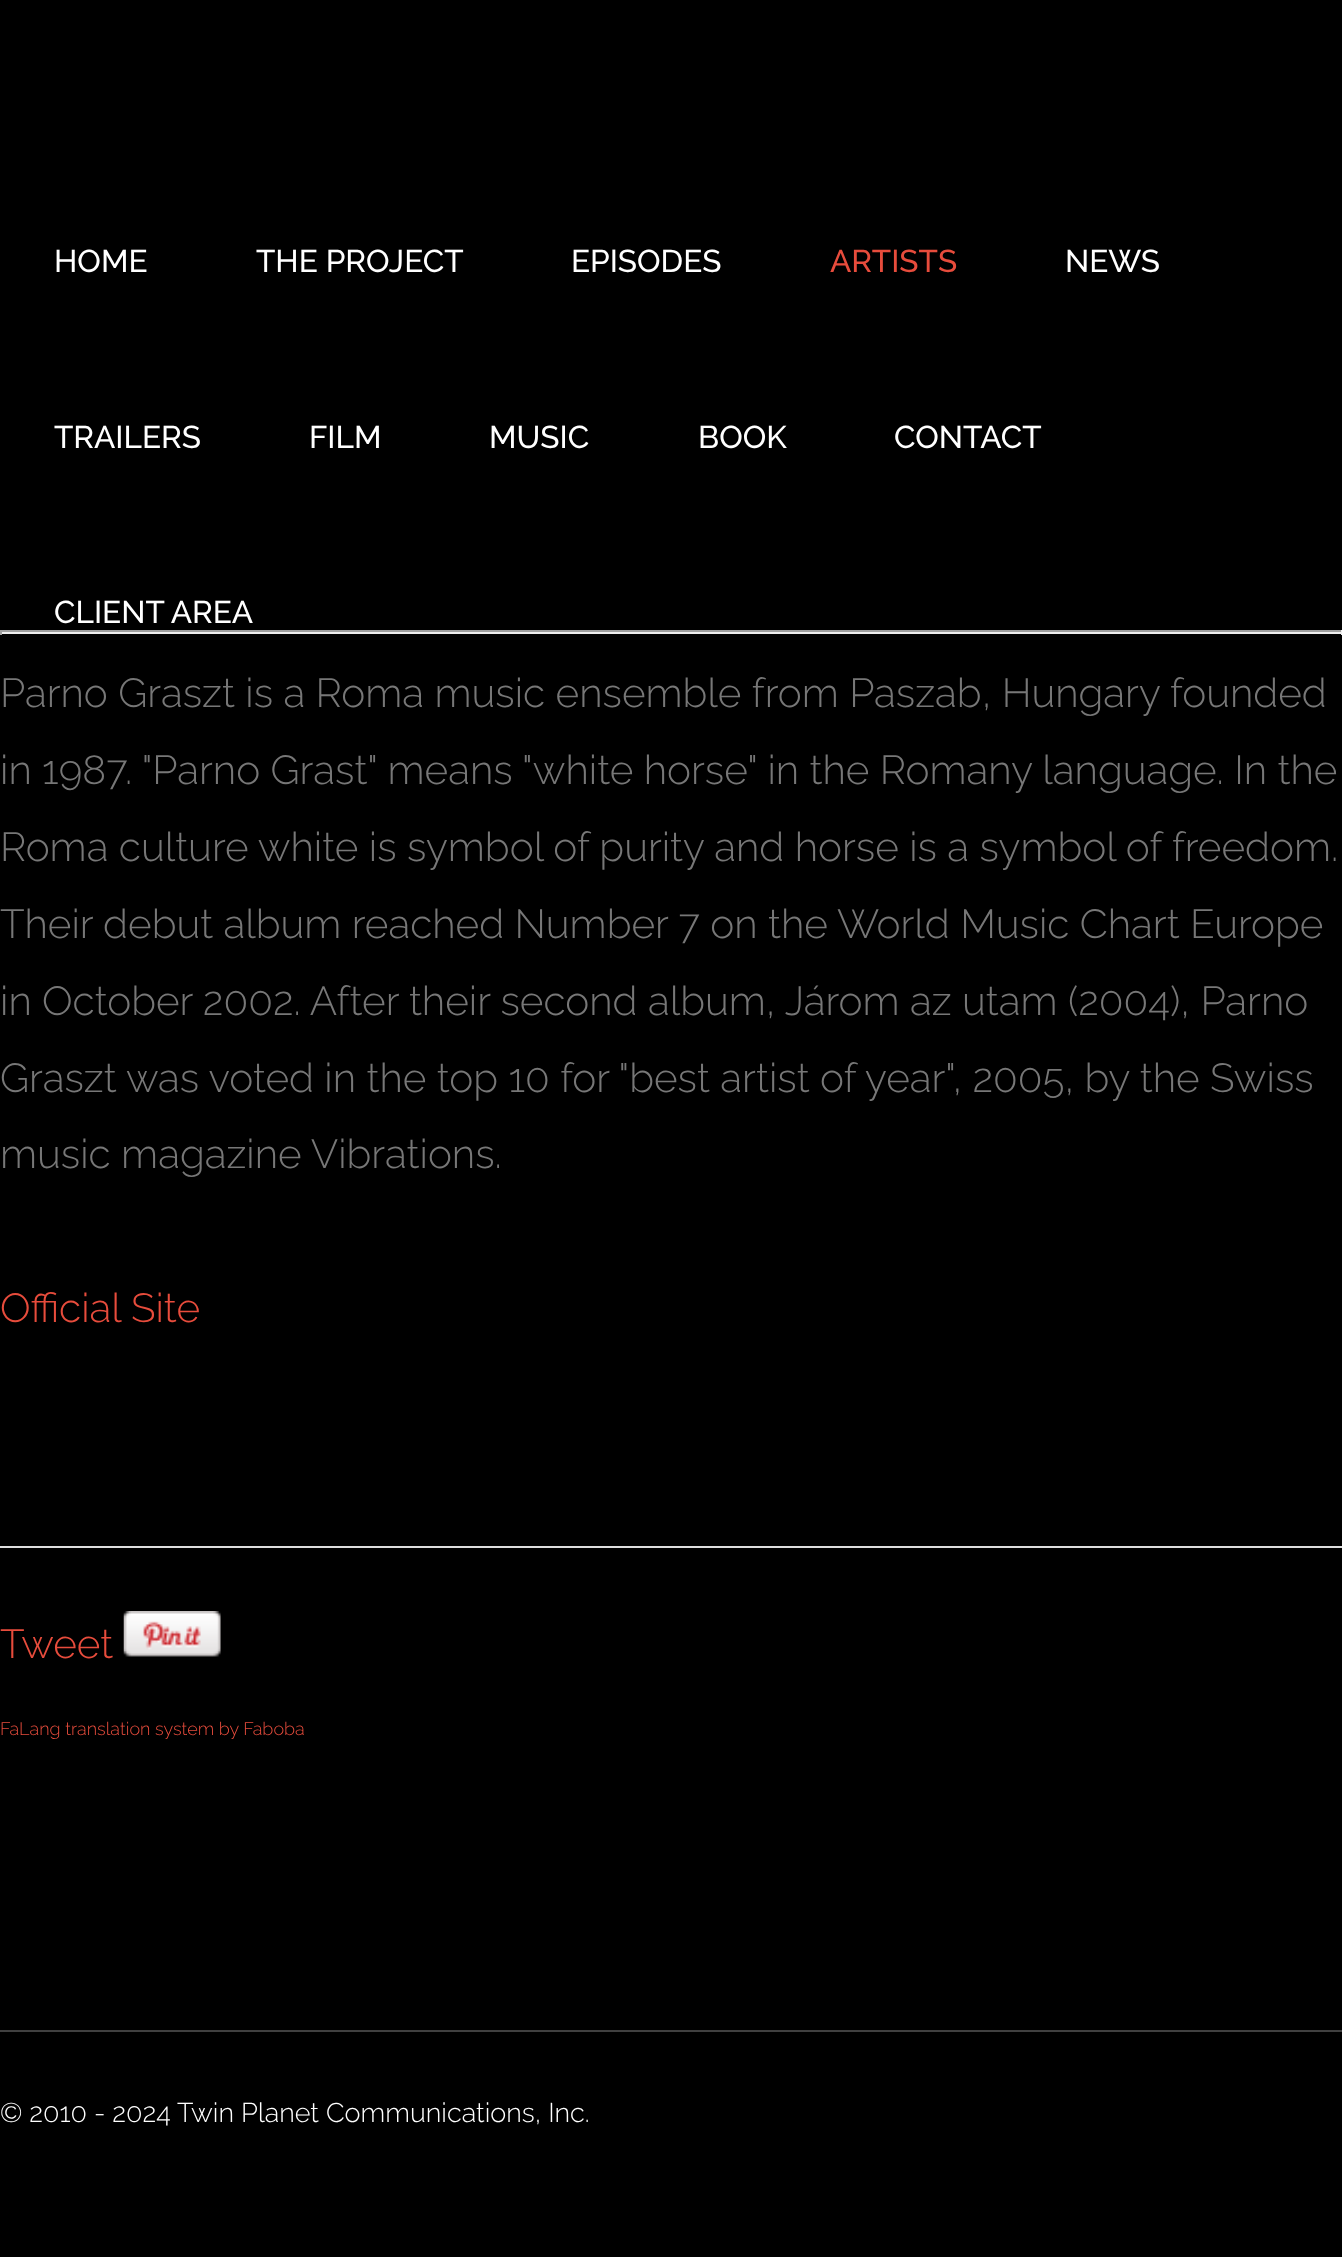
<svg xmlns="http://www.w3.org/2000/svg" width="1342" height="2257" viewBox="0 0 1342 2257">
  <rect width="100%" height="100%" fill="#000"/>
  <path d="M0 630h1342v2H0z" fill="#9f9f9f"/>
  <path d="M1341 630h1v5H1341z" fill="#eee"/>
  <path d="M0 632h1342v2H0z" fill="#eee"/>
  <path d="M0 630h2v5H0z" fill="#9f9f9f"/>
  <path d="M0 1546h1342v2H0z" fill="#ddd"/>
  <image x="123" y="1611" width="98" height="46" href="img/1.png"/>
  <path d="M0 2030h1342v2H0z" fill="#404040"/>
  <g font-family="Raleway" font-size="31.5" font-weight="500" fill="#fff">
    <text x="54" y="272">HOME</text>
    <text x="256" y="272">THE PROJECT</text>
    <text x="571" y="272">EPISODES</text>
  </g>
  <text x="830" y="272" font-family="Raleway" font-size="31.5" font-weight="500" fill="#e74c3c">ARTISTS</text>
  <g font-family="Raleway" font-size="31.5" font-weight="500" fill="#fff">
    <text x="1065" y="272">NEWS</text>
    <text x="54" y="448">TRAILERS</text>
    <text x="309" y="448">FILM</text>
    <text x="489" y="448">MUSIC</text>
    <text x="698" y="448">BOOK</text>
    <text x="894" y="448">CONTACT</text>
    <text x="54" y="623">CLIENT AREA</text>
  </g>
  <g font-family="Raleway" font-size="40.5" font-weight="300" fill="#777">
    <text x="0" y="707">Parno Graszt is a Roma music ensemble from Paszab, Hungary founded</text>
    <text x="0" y="784">in 1987. "Parno Grast" means "white horse" in the Romany language. In the</text>
    <text x="0" y="861">Roma culture white is symbol of purity and horse is a symbol of freedom.</text>
    <text x="0" y="938">Their debut album reached Number 7 on the World Music Chart Europe</text>
    <text x="0" y="1015">in October 2002. After their second album, Járom az utam (2004), Parno</text>
    <text x="0" y="1092">Graszt was voted in the top 10 for "best artist of year", 2005, by the Swiss</text>
    <text x="0" y="1168">music magazine Vibrations.</text>
  </g>
  <g font-family="Raleway" font-size="40.5" font-weight="300" fill="#e74c3c">
    <text x="0" y="1322">Official Site</text>
    <text x="0" y="1658">Tweet</text>
  </g>
  <text x="0" y="1735" font-family="Raleway" font-size="18" font-weight="300" fill="#e74c3c">FaLang translation system by Faboba</text>
  <text x="0" y="2122" font-family="Raleway" font-size="27" font-weight="300" fill="#fff">© 2010 - 2024 Twin Planet Communications, Inc.</text>
</svg>
